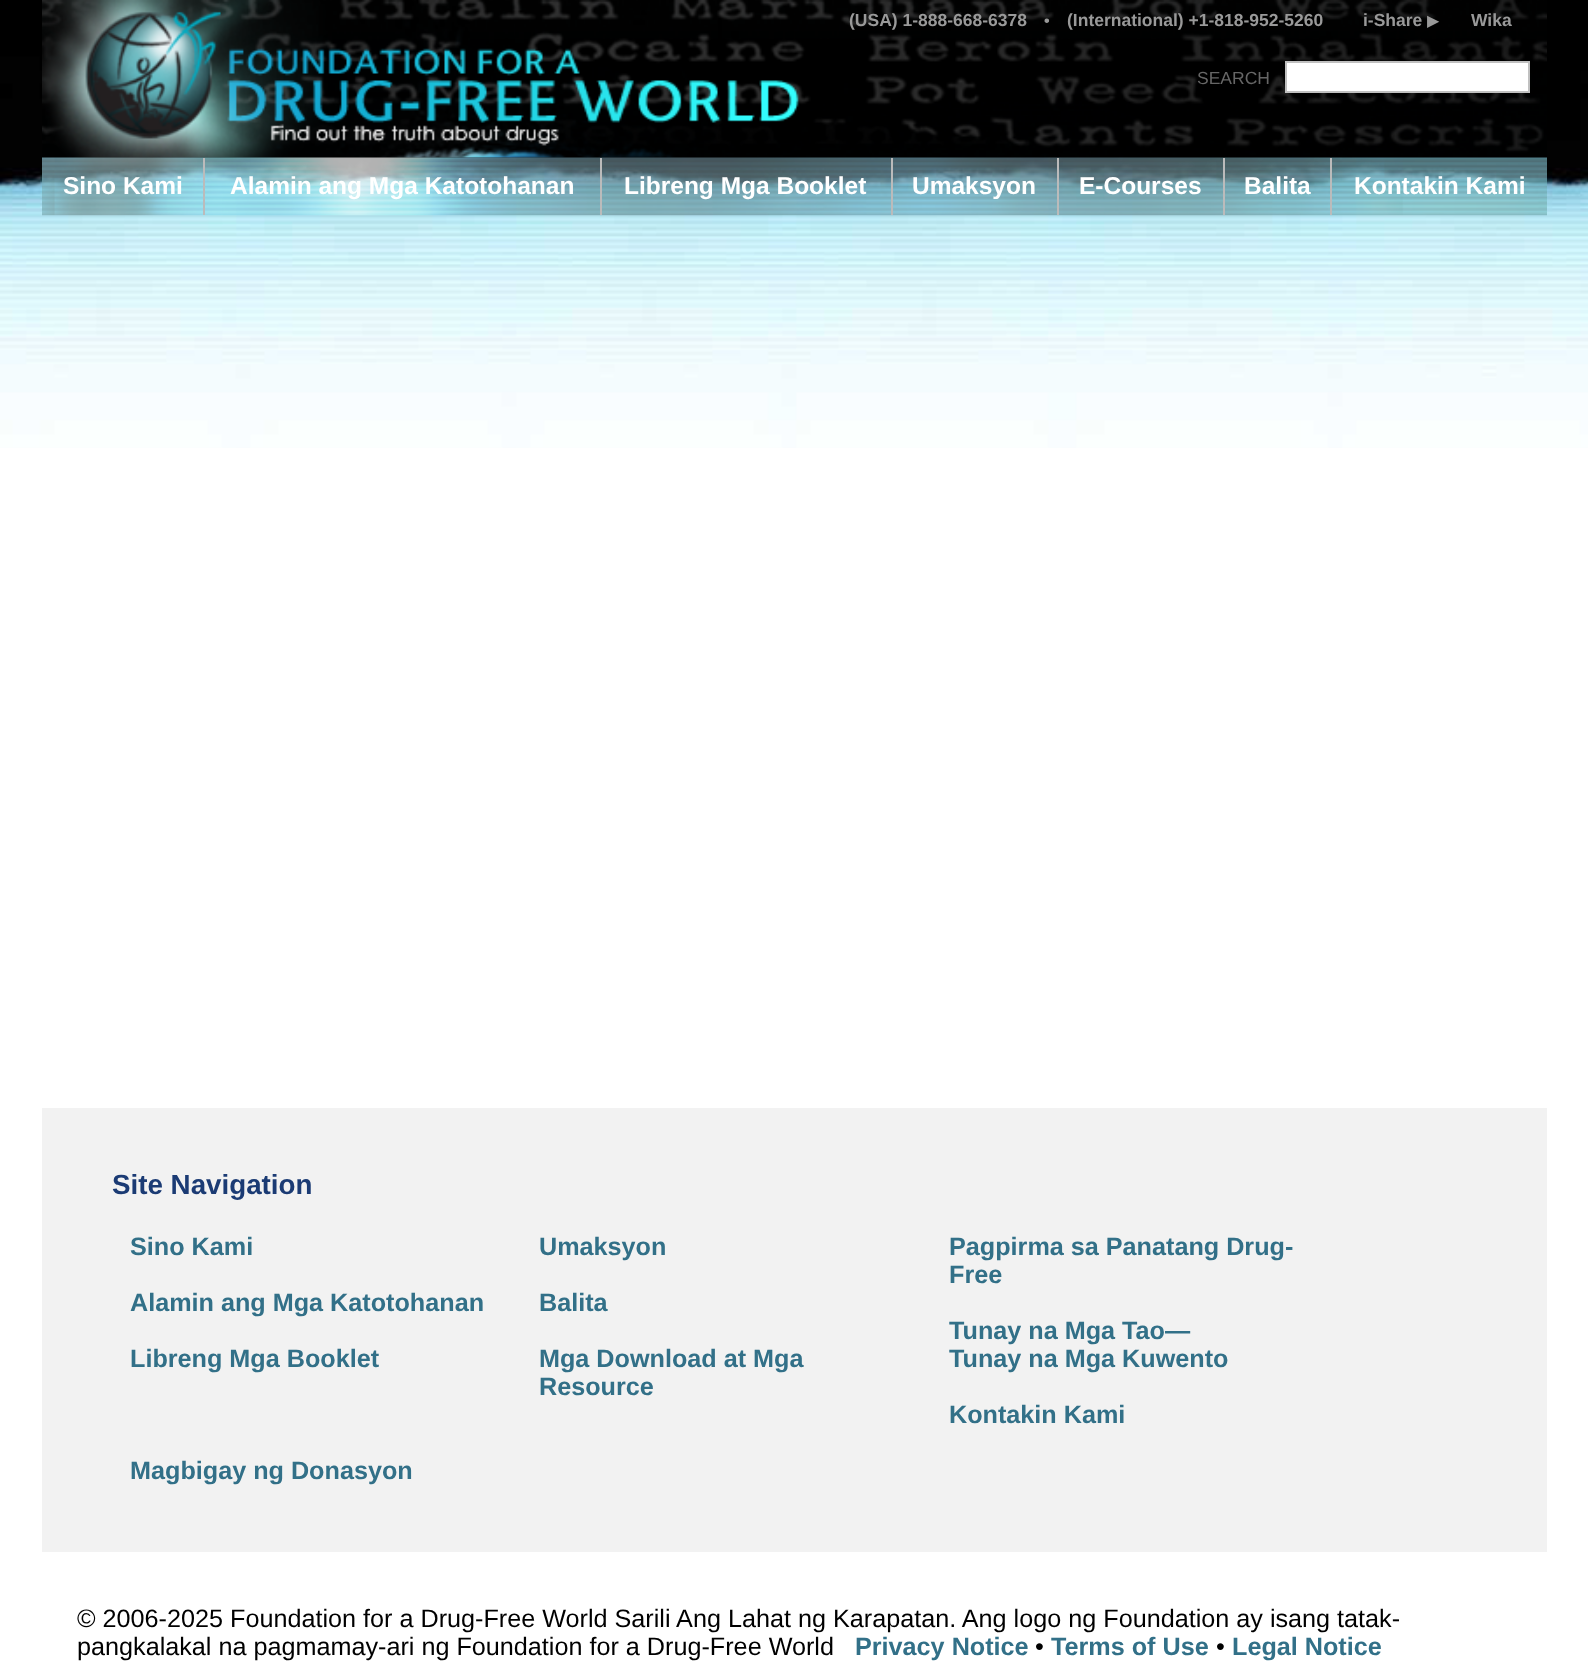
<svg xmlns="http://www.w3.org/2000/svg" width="1588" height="1669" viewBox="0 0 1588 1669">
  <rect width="100%" height="100%" fill="#fff"/>
  <image x="0" y="0" width="1588" height="448" href="img/1.png"/>
  <image x="42" y="0" width="1505" height="158" href="img/2.png"/>
  <path d="M1286 62h243v30H1286z" fill="#fff" stroke="#c0c0c0" stroke-width="2"/>
  <image x="42" y="157" width="1505" height="59" href="img/3.png"/>
  <path d="M203 158h2v57H203z" fill="#bbb"/>
  <path d="M600 158h2v57H600z" fill="#bbb"/>
  <path d="M891 158h2v57H891z" fill="#bbb"/>
  <path d="M1057 158h2v57H1057z" fill="#bbb"/>
  <path d="M1223 158h2v57H1223z" fill="#bbb"/>
  <path d="M1330 158h2v57H1330z" fill="#bbb"/>
  <path d="M42 1108h1505v444H42z" fill="#f2f2f2"/>
  <text x="849" y="26" font-family="Liberation Sans" font-size="17.5" font-weight="bold" fill="#999">(USA) 1-888-668-6378</text>
  <text x="1044" y="26" font-family="Liberation Sans" font-size="16" font-weight="bold" fill="#999">•</text>
  <g font-family="Liberation Sans" font-size="17.5" font-weight="bold" fill="#999">
    <text x="1067" y="26">(International) +1-818-952-5260</text>
    <text x="1363" y="26">i-Share</text>
  </g>
  <text x="1427" y="26" font-family="DejaVu Sans" font-size="16" fill="#999">▶</text>
  <text x="1471" y="26" font-family="Liberation Sans" font-size="17.5" font-weight="bold" fill="#999">Wika</text>
  <text x="1197" y="84" font-family="Liberation Sans" font-size="17.5" fill="#666">SEARCH</text>
  <g font-family="Liberation Sans" font-size="24.5" font-weight="bold" fill="#fff">
    <text x="63" y="194">Sino Kami</text>
    <text x="230" y="194">Alamin ang Mga Katotohanan</text>
    <text x="624" y="194">Libreng Mga Booklet</text>
    <text x="912" y="194">Umaksyon</text>
    <text x="1079" y="194">E-Courses</text>
    <text x="1244" y="194">Balita</text>
    <text x="1354" y="194">Kontakin Kami</text>
  </g>
  <text x="112" y="1194" font-family="Liberation Sans" font-size="27.75" font-weight="bold" fill="#1b3b74">Site Navigation</text>
  <g font-family="Liberation Sans" font-size="25.2" font-weight="bold" fill="#327088">
    <text x="130" y="1255">Sino Kami</text>
    <text x="130" y="1311">Alamin ang Mga Katotohanan</text>
    <text x="130" y="1367">Libreng Mga Booklet</text>
    <text x="539" y="1255">Umaksyon</text>
    <text x="539" y="1311">Balita</text>
    <text x="539" y="1367">Mga Download at Mga</text>
    <text x="539" y="1395">Resource</text>
    <text x="949" y="1255">Pagpirma sa Panatang Drug-</text>
    <text x="949" y="1283">Free</text>
    <text x="949" y="1339">Tunay na Mga Tao—</text>
    <text x="949" y="1367">Tunay na Mga Kuwento</text>
    <text x="949" y="1423">Kontakin Kami</text>
    <text x="130" y="1479">Magbigay ng Donasyon</text>
  </g>
  <g font-family="Liberation Sans" font-size="25.2" fill="#000">
    <text x="77" y="1627">© 2006-2025 Foundation for a Drug-Free World Sarili Ang Lahat ng Karapatan. Ang logo ng Foundation ay isang tatak-</text>
    <text x="77" y="1655">pangkalakal na pagmamay-ari ng Foundation for a Drug-Free World</text>
  </g>
  <text x="855" y="1655" font-family="Liberation Sans" font-size="25.2" font-weight="bold" fill="#327088">Privacy Notice</text>
  <text x="1035" y="1655" font-family="Liberation Sans" font-size="25.2" fill="#000">•</text>
  <text x="1051" y="1655" font-family="Liberation Sans" font-size="25.2" font-weight="bold" fill="#327088">Terms of Use</text>
  <text x="1216" y="1655" font-family="Liberation Sans" font-size="25.2" fill="#000">•</text>
  <text x="1232" y="1655" font-family="Liberation Sans" font-size="25.2" font-weight="bold" fill="#327088">Legal Notice</text>
</svg>
